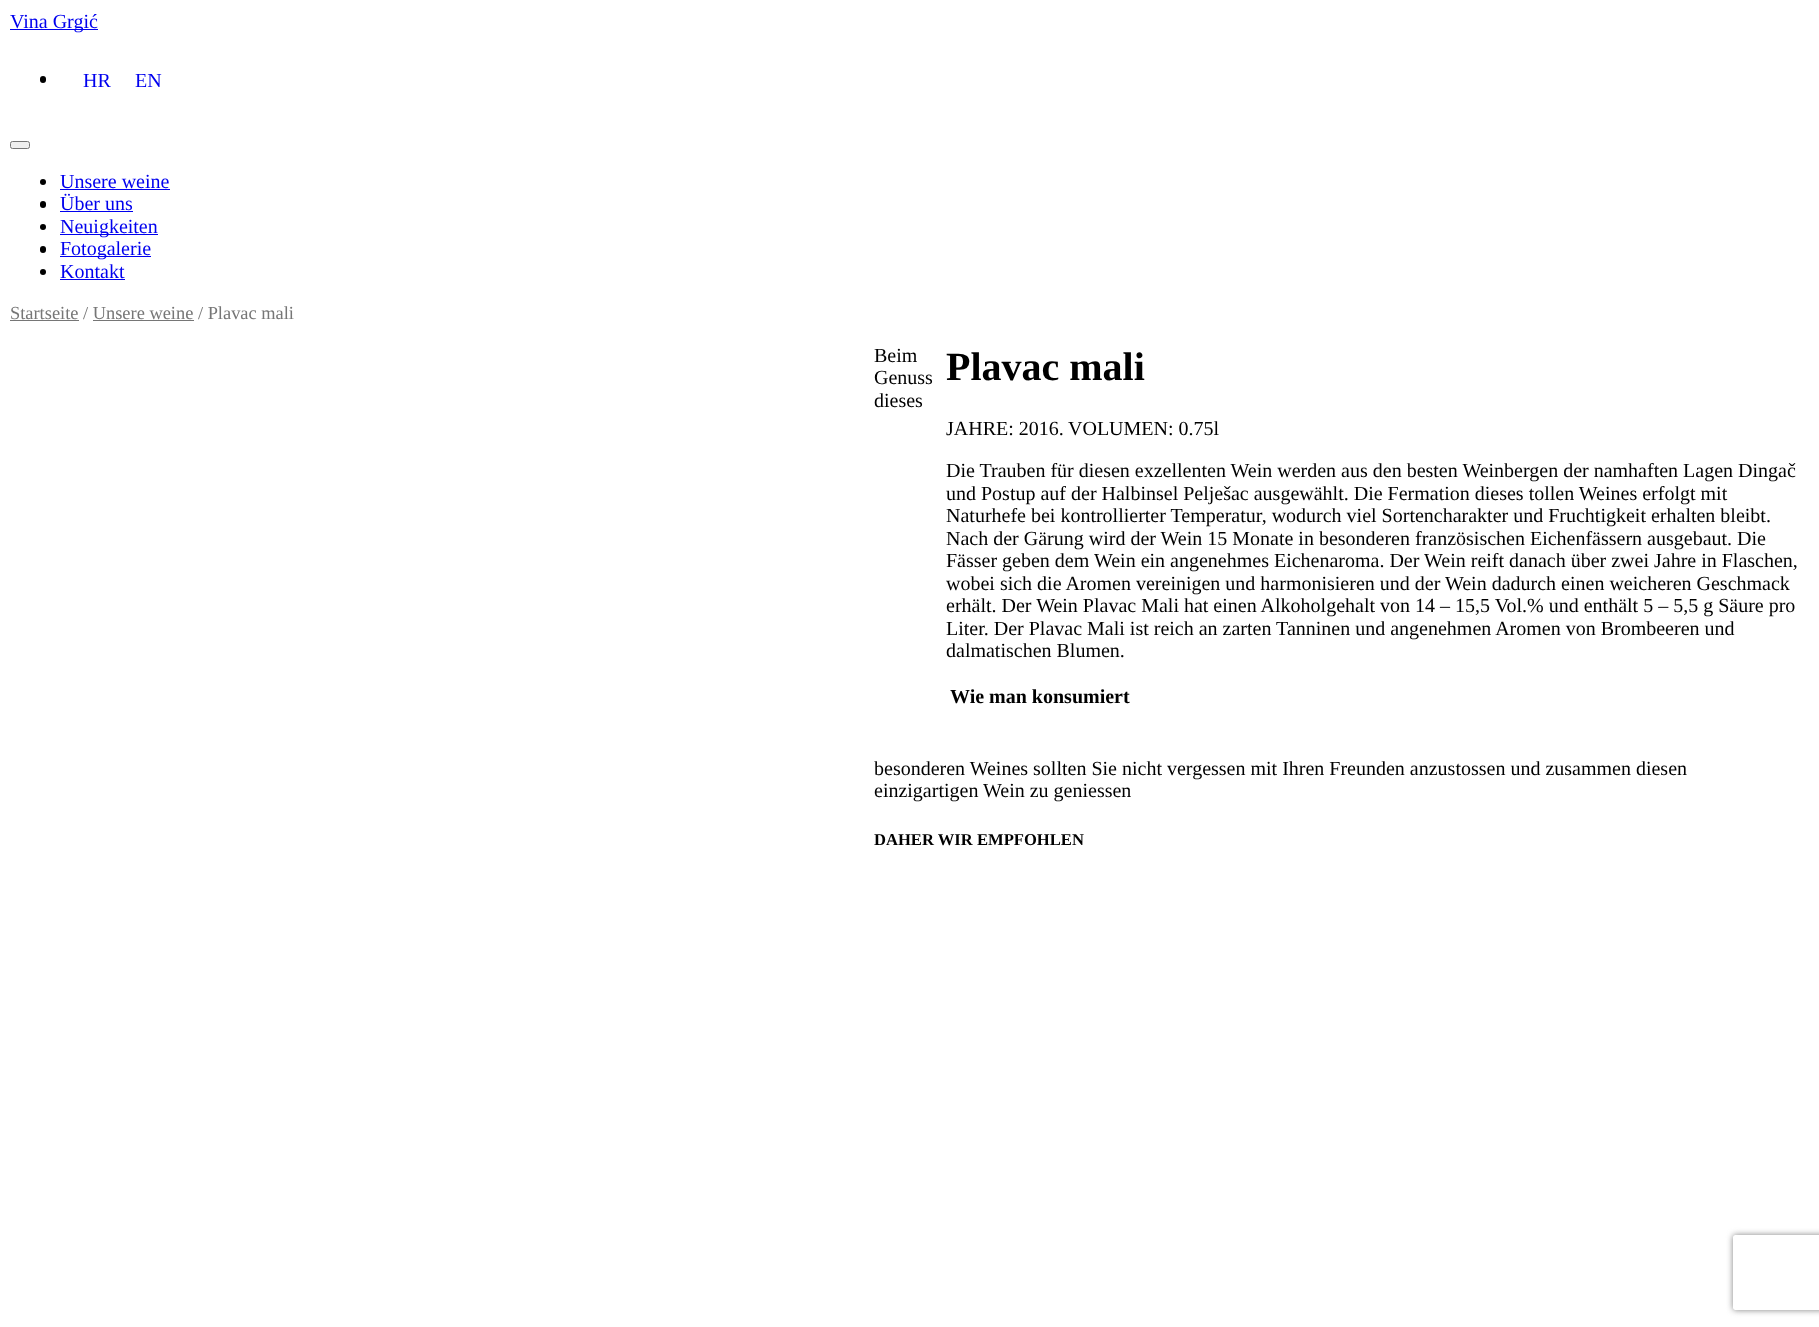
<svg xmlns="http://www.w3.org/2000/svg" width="1819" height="1327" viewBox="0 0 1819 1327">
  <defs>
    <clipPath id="clip1"><path d="M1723 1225H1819V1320H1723ZM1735.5 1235H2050.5C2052 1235 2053 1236 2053 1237.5V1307.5C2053 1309 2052 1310 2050.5 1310H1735.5C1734 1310 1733 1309 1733 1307.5V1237.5C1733 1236 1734 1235 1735.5 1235Z" clip-rule="evenodd"/></clipPath>
  </defs>
  <rect width="100%" height="100%" fill="#fff"/>
  <path d="M10 29h88v1H10z" fill="#00e"/>
  <rect x="40" y="76" width="6" height="7" rx="3" fill="#000"/>
  <rect x="10.5" y="141.5" width="19" height="7" rx="2" fill="#efefef" stroke="#767676"/>
  <circle cx="43" cy="182" r="3" fill="#000"/>
  <path d="M60 189h110v1H60z" fill="#00e"/>
  <rect x="40" y="201" width="6" height="7" rx="3" fill="#000"/>
  <path d="M60 211h73v1H60z" fill="#00e"/>
  <circle cx="43" cy="227" r="3" fill="#000"/>
  <path d="M60 234h98v1H60z" fill="#00e"/>
  <rect x="40" y="246" width="6" height="7" rx="3" fill="#000"/>
  <path d="M60 256h91v1H60z" fill="#00e"/>
  <circle cx="43" cy="272" r="3" fill="#000"/>
  <path d="M60 279h65v1H60z" fill="#00e"/>
  <path d="M10 320h69v1H10z" fill="#767676"/>
  <path d="M93 320h101v1H93z" fill="#767676"/>
  <g clip-path="url(#clip1)">
    <rect x="1733" y="1235" width="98" height="75" rx="2.5" fill="#808080" filter="blur(3px)"/>
  </g>
  <g font-family="Liberation Serif" font-size="20" fill="#00e">
    <text x="10" y="28">Vina Grgić</text>
    <text x="83" y="87">HR</text>
    <text x="135" y="87">EN</text>
    <text x="60" y="188">Unsere weine</text>
    <text x="60" y="210">Über uns</text>
    <text x="60" y="233">Neuigkeiten</text>
    <text x="60" y="255">Fotogalerie</text>
    <text x="60" y="278">Kontakt</text>
  </g>
  <text x="10" y="319" font-family="Liberation Serif" font-size="18.4" fill="#767676">Startseite / Unsere weine / Plavac mali</text>
  <g font-family="Liberation Serif" font-size="20" fill="#000">
    <text x="874" y="362">Beim</text>
    <text x="874" y="384">Genuss</text>
    <text x="874" y="407">dieses</text>
    <text x="874" y="775">besonderen Weines sollten Sie nicht vergessen mit Ihren Freunden anzustossen und zusammen diesen</text>
    <text x="874" y="797">einzigartigen Wein zu geniessen</text>
  </g>
  <text x="946" y="380" font-family="Liberation Serif" font-size="40" font-weight="bold" fill="#000">Plavac mali</text>
  <g font-family="Liberation Serif" font-size="20" fill="#000">
    <text x="946" y="435">JAHRE: 2016.</text>
    <text x="1068" y="435">VOLUMEN: 0.75l</text>
    <text x="946" y="477">Die Trauben für diesen exzellenten Wein werden aus den besten Weinbergen der namhaften Lagen Dingač</text>
    <text x="946" y="500">und Postup auf der Halbinsel Pelješac ausgewählt. Die Fermation dieses tollen Weines erfolgt mit</text>
    <text x="946" y="522">Naturhefe bei kontrollierter Temperatur, wodurch viel Sortencharakter und Fruchtigkeit erhalten bleibt.</text>
    <text x="946" y="545">Nach der Gärung wird der Wein 15 Monate in besonderen französischen Eichenfässern ausgebaut. Die</text>
    <text x="946" y="567">Fässer geben dem Wein ein angenehmes Eichenaroma. Der Wein reift danach über zwei Jahre in Flaschen,</text>
    <text x="946" y="590">wobei sich die Aromen vereinigen und harmonisieren und der Wein dadurch einen weicheren Geschmack</text>
    <text x="946" y="612">erhält. Der Wein Plavac Mali hat einen Alkoholgehalt von 14 – 15,5 Vol.% und enthält 5 – 5,5 g Säure pro</text>
    <text x="946" y="635">Liter. Der Plavac Mali ist reich an zarten Tanninen und angenehmen Aromen von Brombeeren und</text>
    <text x="946" y="657">dalmatischen Blumen.</text>
  </g>
  <text x="950" y="703" font-family="Liberation Serif" font-size="20" font-weight="bold" fill="#000">Wie man konsumiert</text>
  <text x="874" y="845" font-family="Liberation Serif" font-size="16.6" font-weight="bold" fill="#000">DAHER WIR EMPFOHLEN</text>
</svg>
